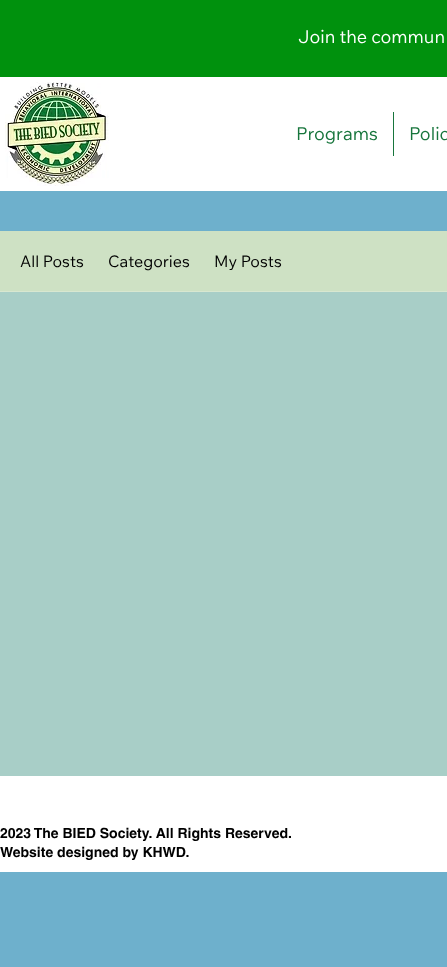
<svg xmlns="http://www.w3.org/2000/svg" width="447" height="967" viewBox="0 0 447 967">
  <rect width="100%" height="100%" fill="#6eb0cc"/>
  <path d="M0 0h447v77H0z" fill="#00910d"/>
  <path d="M0 77h447v114H0z" fill="#fff"/>
  <image x="5" y="82" width="104" height="104" href="img/1.png"/>
  <path d="M393 112h1v44H393z" fill="#17753c"/>
  <path d="M0 292h447v484H0z" fill="#a8cec7"/>
  <path d="M0 231h447v60H0z" fill="#cee1c4"/>
  <path d="M0 291h447v1H0z" fill="#d8e7d0"/>
  <path d="M0 776h447v96H0z" fill="#fff"/>
  <text x="298" y="43" font-family="Wix Madefor Text" font-size="18" fill="#fff">Join the commun</text>
  <g font-family="Wix Madefor Text" font-size="18" fill="#17753c">
    <text x="296" y="140">Programs</text>
    <text x="409" y="140">Polic</text>
  </g>
  <g font-family="Wix Madefor Text" font-size="16" fill="#000">
    <text x="20" y="267">All Posts</text>
    <text x="108" y="267">Categories</text>
    <text x="214" y="267">My Posts</text>
  </g>
  <g font-family="helvetica" font-size="14" font-weight="bold" fill="#000">
    <text x="0" y="838">2023 The BIED Society. All Rights Reserved.</text>
    <text x="0" y="857">Website designed by KHWD.</text>
  </g>
</svg>
